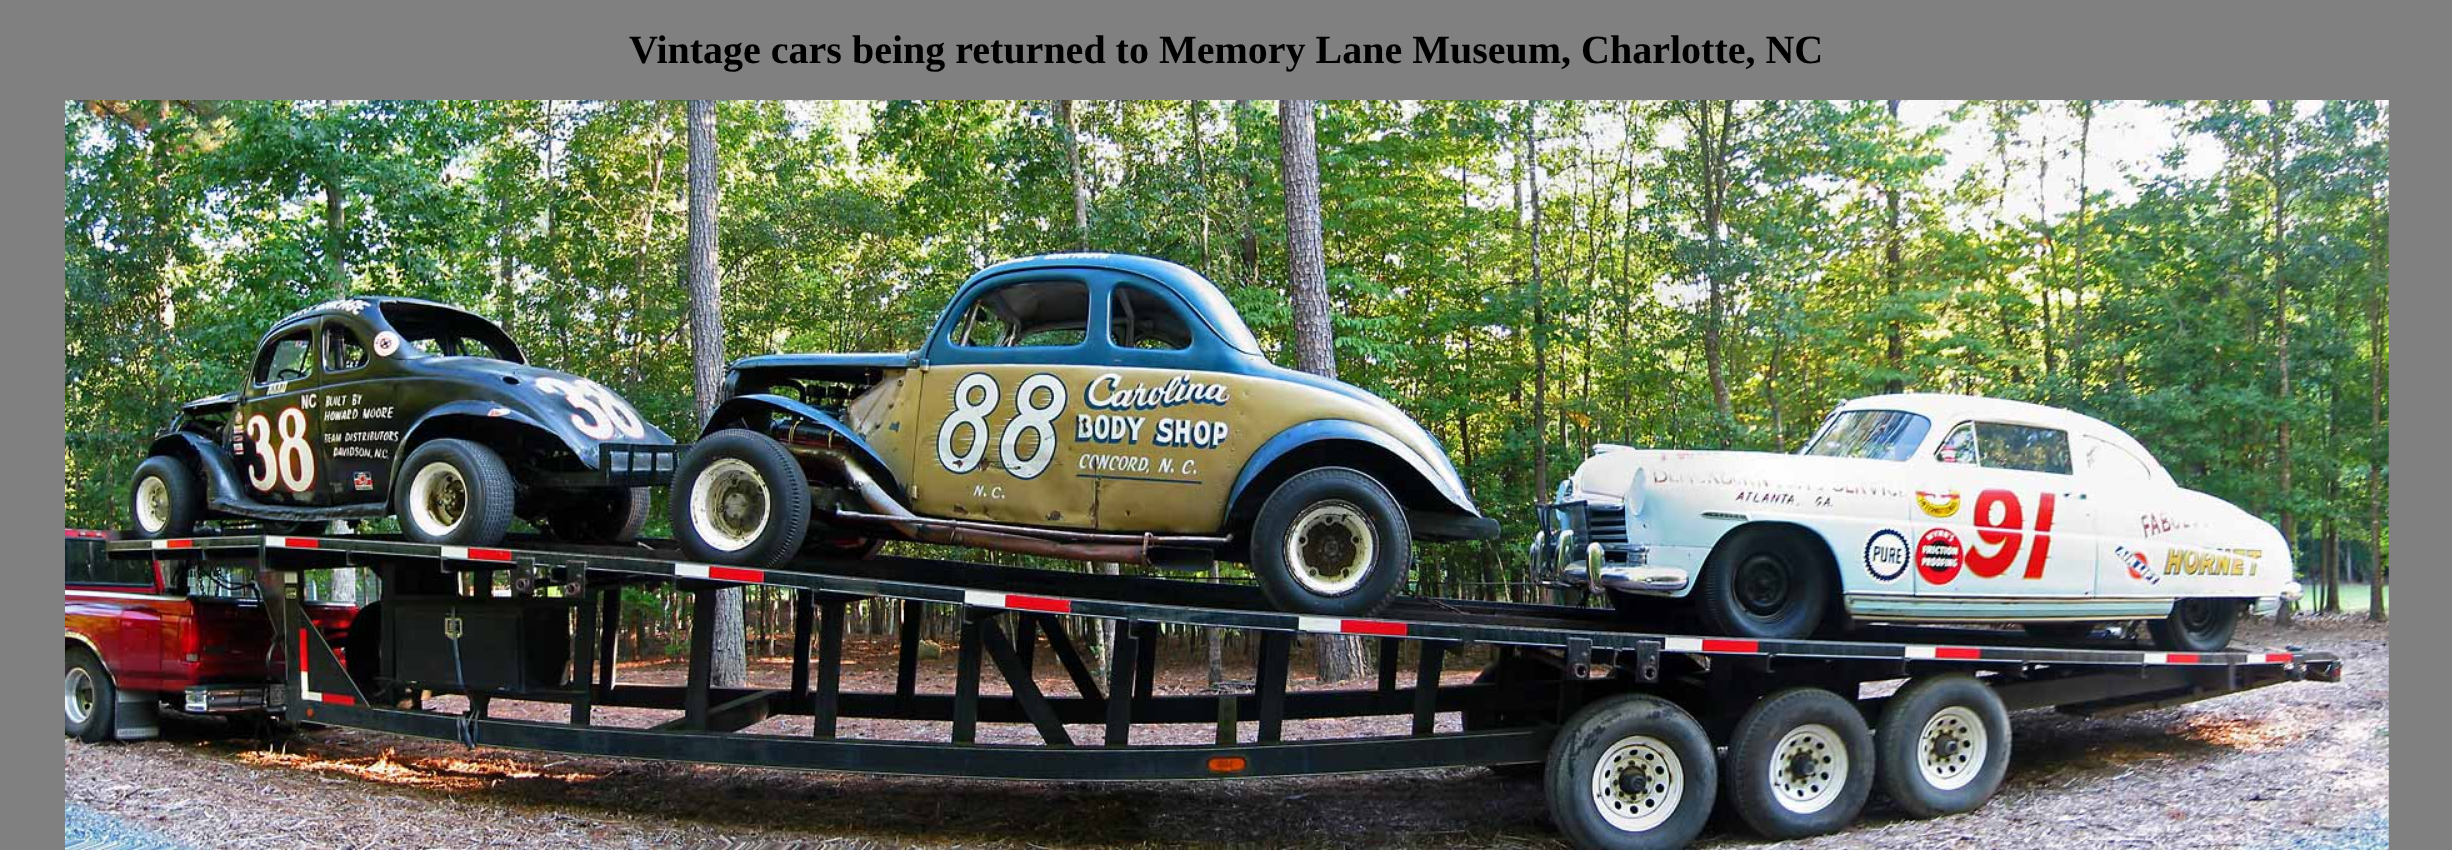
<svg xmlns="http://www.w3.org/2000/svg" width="2452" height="850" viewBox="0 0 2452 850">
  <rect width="100%" height="100%" fill="#808080"/>
  <image x="65" y="100" width="2324" height="750" href="img/1.png"/>
  <text x="629" y="63" font-family="Liberation Serif" font-size="40" font-weight="bold" fill="#000">Vintage cars being returned to Memory Lane Museum, Charlotte, NC</text>
</svg>
